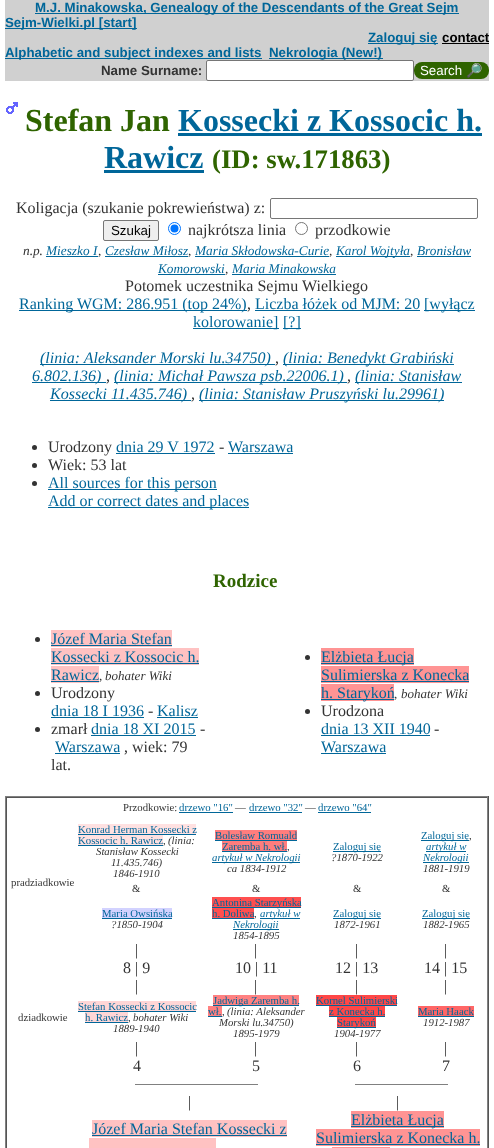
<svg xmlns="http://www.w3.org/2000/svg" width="494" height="1148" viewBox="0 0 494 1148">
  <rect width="100%" height="100%" fill="#fff"/>
  <path d="M5 0h484v81H5z" fill="#d0d0d0"/>
  <path d="M35 13h424v1H35z" fill="#069"/>
  <path d="M5 28h132v1H5z" fill="#069"/>
  <path d="M368 43h70v1H368z" fill="#069"/>
  <path d="M442 43h47v1H442z" fill="#000"/>
  <path d="M5 58h257v1H5z" fill="#069"/>
  <path d="M269 58h114v1H269z" fill="#069"/>
  <rect x="206.5" y="60.5" width="207" height="20" rx="1.5" fill="#fff" stroke="#767676"/>
  <rect x="414" y="62" width="75" height="17" rx="8" fill="#2f6400"/>
  <image x="6" y="102" width="12" height="12" href="img/1.png"/>
  <path d="M178 133h304v3H178z" fill="#069"/>
  <path d="M104 170h100v3H104z" fill="#069"/>
  <rect x="270.5" y="198.5" width="207" height="20" rx="1.5" fill="none" stroke="#767676"/>
  <rect x="103.5" y="220.5" width="55" height="20" rx="1.5" fill="#efefef" stroke="#767676"/>
  <circle cx="174.5" cy="228.5" r="6" fill="none" stroke="#0075ff"/>
  <circle cx="174.5" cy="228.5" r="4" fill="#0075ff"/>
  <circle cx="301.5" cy="228.5" r="6" fill="none" stroke="#767676"/>
  <path d="M46 256h52v1H46z" fill="#069"/>
  <path d="M105 256h83v1H105z" fill="#069"/>
  <path d="M195 256h134v1H195z" fill="#069"/>
  <path d="M336 256h74v1H336z" fill="#069"/>
  <path d="M417 256h54v1H417z" fill="#069"/>
  <path d="M158 274h67v1H158z" fill="#069"/>
  <path d="M232 274h104v1H232z" fill="#069"/>
  <path d="M19 310h228v1H19z" fill="#069"/>
  <path d="M255 310h165v1H255z" fill="#069"/>
  <path d="M424 310h51v1H424z" fill="#069"/>
  <path d="M193 328h86v1H193z" fill="#069"/>
  <path d="M283 328h18v1H283z" fill="#069"/>
  <path d="M40 364h235v1H40z" fill="#069"/>
  <path d="M283 364h171v1H283z" fill="#069"/>
  <path d="M32 382h74v1H32z" fill="#069"/>
  <path d="M114 382h233v1H114z" fill="#069"/>
  <path d="M355 382h107v1H355z" fill="#069"/>
  <path d="M50 400h141v1H50z" fill="#069"/>
  <path d="M199 400h245v1H199z" fill="#069"/>
  <circle cx="34.5" cy="447.5" r="2.5" fill="#333"/>
  <path d="M116 453h99v1H116z" fill="#069"/>
  <path d="M228 453h65v1H228z" fill="#069"/>
  <circle cx="34.5" cy="465.5" r="2.5" fill="#333"/>
  <circle cx="34.5" cy="483.5" r="2.5" fill="#333"/>
  <path d="M48 489h169v1H48z" fill="#069"/>
  <path d="M48 507h201v1H48z" fill="#069"/>
  <circle cx="37.5" cy="639.5" r="2.5" fill="#333"/>
  <path d="M51 630h121v17H51z" fill="#ffc2c2"/>
  <path d="M51 645h121v1H51z" fill="#069"/>
  <path d="M51 648h148v17H51z" fill="#ffc2c2"/>
  <path d="M51 663h148v1H51z" fill="#069"/>
  <path d="M51 666h48v17H51z" fill="#ffc2c2"/>
  <path d="M51 681h48v1H51z" fill="#069"/>
  <circle cx="37.5" cy="693.5" r="2.5" fill="#333"/>
  <path d="M51 717h93v1H51z" fill="#069"/>
  <path d="M157 717h41v1H157z" fill="#069"/>
  <circle cx="37.5" cy="729.5" r="2.5" fill="#333"/>
  <path d="M91 735h105v1H91z" fill="#069"/>
  <path d="M55 753h65v1H55z" fill="#069"/>
  <circle cx="307.5" cy="657.5" r="2.5" fill="#333"/>
  <path d="M321 648h93v17H321z" fill="#ff9494"/>
  <path d="M321 663h93v1H321z" fill="#069"/>
  <path d="M321 666h148v17H321z" fill="#ff9494"/>
  <path d="M321 681h148v1H321z" fill="#069"/>
  <path d="M321 684h73v17H321z" fill="#ff9494"/>
  <path d="M321 699h73v1H321z" fill="#069"/>
  <circle cx="307.5" cy="711.5" r="2.5" fill="#333"/>
  <path d="M321 735h109v1H321z" fill="#069"/>
  <path d="M321 753h65v1H321z" fill="#069"/>
  <path d="M5 796h484v1H5z" fill="#808080"/>
  <path d="M488 796h1v352H488z" fill="#555"/>
  <path d="M5 796h1v352H5z" fill="#808080"/>
  <path d="M6 797h482v1H6z" fill="#555"/>
  <path d="M487 797h1v351H487z" fill="#808080"/>
  <path d="M6 797h1v351H6z" fill="#555"/>
  <path d="M179 812h54v1H179z" fill="#069"/>
  <path d="M249 812h53v1H249z" fill="#069"/>
  <path d="M318 812h53v1H318z" fill="#069"/>
  <path d="M78 824h118v10H78z" fill="#ffe1e1"/>
  <path d="M78 834h118v1H78z" fill="#069"/>
  <path d="M78 835h85v10H78z" fill="#ffe1e1"/>
  <path d="M78 845h85v1H78z" fill="#069"/>
  <path d="M215 830h82v10H215z" fill="#ff7d7d"/>
  <path d="M215 840h82v1H215z" fill="#069"/>
  <path d="M222 841h65v10H222z" fill="#ff7d7d"/>
  <path d="M222 851h65v1H222z" fill="#069"/>
  <path d="M212 862h88v1H212z" fill="#069"/>
  <path d="M333 851h48v1H333z" fill="#069"/>
  <path d="M421 840h48v1H421z" fill="#069"/>
  <path d="M426 851h40v1H426z" fill="#069"/>
  <path d="M423 862h46v1H423z" fill="#069"/>
  <path d="M102 908h70v10H102z" fill="#d2d2ff"/>
  <path d="M102 918h70v1H102z" fill="#069"/>
  <path d="M212 897h89v10H212z" fill="#ff4f4f"/>
  <path d="M212 907h89v1H212z" fill="#069"/>
  <path d="M212 908h42v10H212z" fill="#ff4f4f"/>
  <path d="M212 918h42v1H212z" fill="#069"/>
  <path d="M260 918h40v1H260z" fill="#069"/>
  <path d="M233 929h46v1H233z" fill="#069"/>
  <path d="M333 918h48v1H333z" fill="#069"/>
  <path d="M422 918h48v1H422z" fill="#069"/>
  <path d="M78 1001h118v10H78z" fill="#ffd6d6"/>
  <path d="M78 1011h118v1H78z" fill="#069"/>
  <path d="M85 1012h43v10H85z" fill="#ffd6d6"/>
  <path d="M85 1022h43v1H85z" fill="#069"/>
  <path d="M213 995h86v10H213z" fill="#ff8181"/>
  <path d="M213 1005h86v1H213z" fill="#069"/>
  <path d="M208 1006h14v10H208z" fill="#ff8181"/>
  <path d="M208 1016h14v1H208z" fill="#069"/>
  <path d="M316 995h81v10H316z" fill="#ff4747"/>
  <path d="M316 1005h81v1H316z" fill="#069"/>
  <path d="M329 1006h56v10H329z" fill="#ff4747"/>
  <path d="M329 1016h56v1H329z" fill="#069"/>
  <path d="M337 1017h39v10H337z" fill="#ff4747"/>
  <path d="M337 1027h39v1H337z" fill="#069"/>
  <path d="M418 1006h56v10H418z" fill="#f66"/>
  <path d="M418 1016h56v1H418z" fill="#069"/>
  <path d="M135 1084h123v1H135z" fill="#808080"/>
  <path d="M355 1084h93v1H355z" fill="#808080"/>
  <path d="M92 1120h195v17H92z" fill="#ffc2c2"/>
  <path d="M89 1138h127v10H89z" fill="#ffc2c2"/>
  <path d="M92 1135h195v1H92z" fill="#069"/>
  <path d="M351 1111h93v17H351z" fill="#ff9494"/>
  <path d="M351 1126h93v1H351z" fill="#069"/>
  <path d="M316 1129h164v17H316z" fill="#ff9494"/>
  <path d="M332 1147h58v1H332z" fill="#ff9494"/>
  <path d="M316 1144h164v1H316z" fill="#069"/>
  <g font-family="Liberation Sans" font-size="13.3" font-weight="bold" fill="#069">
    <text x="35" y="12">M.J. Minakowska, Genealogy of the Descendants of the Great Sejm</text>
    <text x="5" y="27">Sejm-Wielki.pl [start]</text>
    <text x="368" y="42">Zaloguj się</text>
  </g>
  <text x="442" y="42" font-family="Liberation Sans" font-size="13.3" font-weight="bold" fill="#000">contact</text>
  <g font-family="Liberation Sans" font-size="13.3" font-weight="bold" fill="#069">
    <text x="5" y="57">Alphabetic and subject indexes and lists</text>
    <text x="269" y="57">Nekrologia (New!)</text>
  </g>
  <text x="101" y="75" font-family="Liberation Sans" font-size="13.3" font-weight="bold" fill="#333">Name Surname:</text>
  <text x="420" y="75" font-family="Liberation Sans" font-size="13.3" fill="#fff">Search</text>
  <text x="466" y="75" font-family="Noto Color Emoji" font-size="13.3" fill="#fff">🔎</text>
  <text x="25" y="131" font-family="Liberation Serif" font-size="32" font-weight="bold" fill="#2f6400">Stefan Jan</text>
  <g font-family="Liberation Serif" font-size="32" font-weight="bold" fill="#069">
    <text x="178" y="131">Kossecki z Kossocic h.</text>
    <text x="104" y="168">Rawicz</text>
  </g>
  <text x="212" y="168" font-family="Liberation Serif" font-size="26.75" font-weight="bold" fill="#2f6400">(ID: sw.171863)</text>
  <text x="16" y="213" font-family="Liberation Serif" font-size="16" fill="#333">Koligacja (szukanie pokrewieństwa) z:</text>
  <text x="111" y="235" font-family="Liberation Sans" font-size="13.3" fill="#000">Szukaj</text>
  <g font-family="Liberation Serif" font-size="16" fill="#333">
    <text x="188" y="235">najkrótsza linia</text>
    <text x="315" y="235">przodkowie</text>
  </g>
  <text x="23" y="255" font-family="Liberation Serif" font-size="13.3" font-style="italic" fill="#333">n.p.</text>
  <text x="46" y="255" font-family="Liberation Serif" font-size="13.3" font-style="italic" fill="#069">Mieszko I</text>
  <text x="98" y="255" font-family="Liberation Serif" font-size="13.3" font-style="italic" fill="#333">,</text>
  <text x="105" y="255" font-family="Liberation Serif" font-size="13.3" font-style="italic" fill="#069">Czesław Miłosz</text>
  <text x="188" y="255" font-family="Liberation Serif" font-size="13.3" font-style="italic" fill="#333">,</text>
  <text x="195" y="255" font-family="Liberation Serif" font-size="13.3" font-style="italic" fill="#069">Maria Skłodowska-Curie</text>
  <text x="329" y="255" font-family="Liberation Serif" font-size="13.3" font-style="italic" fill="#333">,</text>
  <text x="336" y="255" font-family="Liberation Serif" font-size="13.3" font-style="italic" fill="#069">Karol Wojtyła</text>
  <text x="410" y="255" font-family="Liberation Serif" font-size="13.3" font-style="italic" fill="#333">,</text>
  <g font-family="Liberation Serif" font-size="13.3" font-style="italic" fill="#069">
    <text x="417" y="255">Bronisław</text>
    <text x="158" y="273">Komorowski</text>
  </g>
  <text x="225" y="273" font-family="Liberation Serif" font-size="13.3" font-style="italic" fill="#333">,</text>
  <text x="232" y="273" font-family="Liberation Serif" font-size="13.3" font-style="italic" fill="#069">Maria Minakowska</text>
  <text x="125" y="291" font-family="Liberation Serif" font-size="16" fill="#333">Potomek uczestnika Sejmu Wielkiego</text>
  <text x="19" y="309" font-family="Liberation Serif" font-size="16" fill="#069">Ranking WGM: 286.951 (top 24%)</text>
  <text x="247" y="309" font-family="Liberation Serif" font-size="16" fill="#333">,</text>
  <g font-family="Liberation Serif" font-size="16" fill="#069">
    <text x="255" y="309">Liczba łóżek od MJM: 20</text>
    <text x="424" y="309">[wyłącz</text>
    <text x="193" y="327">kolorowanie]</text>
    <text x="283" y="327">[?]</text>
  </g>
  <text x="40" y="363" font-family="Liberation Serif" font-size="16" font-style="italic" fill="#069">(linia: Aleksander Morski lu.34750)</text>
  <text x="275" y="363" font-family="Liberation Serif" font-size="16" font-style="italic" fill="#333">,</text>
  <g font-family="Liberation Serif" font-size="16" font-style="italic" fill="#069">
    <text x="283" y="363">(linia: Benedykt Grabiński</text>
    <text x="32" y="381">6.802.136)</text>
  </g>
  <text x="106" y="381" font-family="Liberation Serif" font-size="16" font-style="italic" fill="#333">,</text>
  <text x="114" y="381" font-family="Liberation Serif" font-size="16" font-style="italic" fill="#069">(linia: Michał Pawsza psb.22006.1)</text>
  <text x="347" y="381" font-family="Liberation Serif" font-size="16" font-style="italic" fill="#333">,</text>
  <g font-family="Liberation Serif" font-size="16" font-style="italic" fill="#069">
    <text x="355" y="381">(linia: Stanisław</text>
    <text x="50" y="399">Kossecki 11.435.746)</text>
  </g>
  <text x="191" y="399" font-family="Liberation Serif" font-size="16" font-style="italic" fill="#333">,</text>
  <text x="199" y="399" font-family="Liberation Serif" font-size="16" font-style="italic" fill="#069">(linia: Stanisław Pruszyński lu.29961)</text>
  <text x="48" y="452" font-family="Liberation Serif" font-size="16" fill="#333">Urodzony</text>
  <text x="116" y="452" font-family="Liberation Serif" font-size="16" fill="#069">dnia 29 V 1972</text>
  <text x="219" y="452" font-family="Liberation Serif" font-size="16" fill="#333">-</text>
  <text x="228" y="452" font-family="Liberation Serif" font-size="16" fill="#069">Warszawa</text>
  <text x="48" y="470" font-family="Liberation Serif" font-size="16" fill="#333">Wiek: 53 lat</text>
  <g font-family="Liberation Serif" font-size="16" fill="#069">
    <text x="48" y="488">All sources for this person</text>
    <text x="48" y="506">Add or correct dates and places</text>
  </g>
  <text x="213" y="587" font-family="Liberation Serif" font-size="19" font-weight="bold" fill="#2f6400">Rodzice</text>
  <g font-family="Liberation Serif" font-size="16" fill="#069">
    <text x="51" y="644">Józef Maria Stefan</text>
    <text x="51" y="662">Kossecki z Kossocic h.</text>
    <text x="51" y="680">Rawicz</text>
  </g>
  <text x="99" y="680" font-family="Liberation Serif" font-size="13" fill="#333">,</text>
  <text x="105" y="680" font-family="Liberation Serif" font-size="13" font-style="italic" fill="#333">bohater Wiki</text>
  <text x="51" y="698" font-family="Liberation Serif" font-size="16" fill="#333">Urodzony</text>
  <text x="51" y="716" font-family="Liberation Serif" font-size="16" fill="#069">dnia 18 I 1936</text>
  <text x="148" y="716" font-family="Liberation Serif" font-size="16" fill="#333">-</text>
  <text x="157" y="716" font-family="Liberation Serif" font-size="16" fill="#069">Kalisz</text>
  <text x="51" y="734" font-family="Liberation Serif" font-size="16" fill="#333">zmarł</text>
  <text x="91" y="734" font-family="Liberation Serif" font-size="16" fill="#069">dnia 18 XI 2015</text>
  <text x="200" y="734" font-family="Liberation Serif" font-size="16" fill="#333">-</text>
  <text x="55" y="752" font-family="Liberation Serif" font-size="16" fill="#069">Warszawa</text>
  <g font-family="Liberation Serif" font-size="16" fill="#333">
    <text x="124" y="752">, wiek: 79</text>
    <text x="51" y="770">lat.</text>
  </g>
  <g font-family="Liberation Serif" font-size="16" fill="#069">
    <text x="321" y="662">Elżbieta Łucja</text>
    <text x="321" y="680">Sulimierska z Konecka</text>
    <text x="321" y="698">h. Starykoń</text>
  </g>
  <text x="394" y="698" font-family="Liberation Serif" font-size="13" fill="#333">,</text>
  <text x="401" y="698" font-family="Liberation Serif" font-size="13" font-style="italic" fill="#333">bohater Wiki</text>
  <text x="321" y="716" font-family="Liberation Serif" font-size="16" fill="#333">Urodzona</text>
  <text x="321" y="734" font-family="Liberation Serif" font-size="16" fill="#069">dnia 13 XII 1940</text>
  <text x="434" y="734" font-family="Liberation Serif" font-size="16" fill="#333">-</text>
  <text x="321" y="752" font-family="Liberation Serif" font-size="16" fill="#069">Warszawa</text>
  <text x="123" y="811" font-family="Liberation Serif" font-size="10.75" fill="#333">Przodkowie:</text>
  <text x="179" y="811" font-family="Liberation Serif" font-size="10.75" fill="#069">drzewo "16"</text>
  <text x="235" y="811" font-family="Liberation Serif" font-size="10.75" fill="#333">—</text>
  <text x="249" y="811" font-family="Liberation Serif" font-size="10.75" fill="#069">drzewo "32"</text>
  <text x="305" y="811" font-family="Liberation Serif" font-size="10.75" fill="#333">—</text>
  <g font-family="Liberation Serif" font-size="10.75" fill="#069">
    <text x="318" y="811">drzewo "64"</text>
    <text x="78" y="833">Konrad Herman Kossecki z</text>
    <text x="78" y="844">Kossocic h. Rawicz</text>
  </g>
  <text x="163" y="844" font-family="Liberation Serif" font-size="10.75" fill="#333">,</text>
  <g font-family="Liberation Serif" font-size="10.75" font-style="italic" fill="#333">
    <text x="168" y="844">(linia:</text>
    <text x="96" y="855">Stanisław Kossecki</text>
    <text x="111" y="866">11.435.746)</text>
    <text x="113" y="877">1846-1910</text>
  </g>
  <g font-family="Liberation Serif" font-size="10.75" fill="#069">
    <text x="215" y="839">Bolesław Romuald</text>
    <text x="222" y="850">Zaremba h. wł.</text>
  </g>
  <text x="287" y="850" font-family="Liberation Serif" font-size="10.75" fill="#333">,</text>
  <text x="212" y="861" font-family="Liberation Serif" font-size="10.75" font-style="italic" fill="#069">artykuł w Nekrologii</text>
  <text x="227" y="872" font-family="Liberation Serif" font-size="10.75" font-style="italic" fill="#333">ca 1834-1912</text>
  <text x="333" y="850" font-family="Liberation Serif" font-size="10.75" fill="#069">Zaloguj się</text>
  <text x="331" y="861" font-family="Liberation Serif" font-size="10.75" font-style="italic" fill="#333">?1870-1922</text>
  <text x="421" y="839" font-family="Liberation Serif" font-size="10.75" fill="#069">Zaloguj się</text>
  <text x="469" y="839" font-family="Liberation Serif" font-size="10.75" fill="#333">,</text>
  <g font-family="Liberation Serif" font-size="10.75" font-style="italic" fill="#069">
    <text x="426" y="850">artykuł w</text>
    <text x="423" y="861">Nekrologii</text>
  </g>
  <text x="423" y="872" font-family="Liberation Serif" font-size="10.75" font-style="italic" fill="#333">1881-1919</text>
  <g font-family="Liberation Serif" font-size="10.75" fill="#333">
    <text x="11" y="886">pradziadkowie</text>
    <text x="132" y="892">&amp;</text>
    <text x="252" y="892">&amp;</text>
    <text x="353" y="892">&amp;</text>
    <text x="442" y="892">&amp;</text>
  </g>
  <text x="102" y="917" font-family="Liberation Serif" font-size="10.75" fill="#069">Maria Owsińska</text>
  <text x="111" y="928" font-family="Liberation Serif" font-size="10.75" font-style="italic" fill="#333">?1850-1904</text>
  <g font-family="Liberation Serif" font-size="10.75" fill="#069">
    <text x="212" y="906">Antonina Starzyńska</text>
    <text x="212" y="917">h. Doliwa</text>
  </g>
  <text x="254" y="917" font-family="Liberation Serif" font-size="10.75" fill="#333">,</text>
  <g font-family="Liberation Serif" font-size="10.75" font-style="italic" fill="#069">
    <text x="260" y="917">artykuł w</text>
    <text x="233" y="928">Nekrologii</text>
  </g>
  <text x="233" y="939" font-family="Liberation Serif" font-size="10.75" font-style="italic" fill="#333">1854-1895</text>
  <text x="333" y="917" font-family="Liberation Serif" font-size="10.75" fill="#069">Zaloguj się</text>
  <text x="334" y="928" font-family="Liberation Serif" font-size="10.75" font-style="italic" fill="#333">1872-1961</text>
  <text x="422" y="917" font-family="Liberation Serif" font-size="10.75" fill="#069">Zaloguj się</text>
  <text x="423" y="928" font-family="Liberation Serif" font-size="10.75" font-style="italic" fill="#333">1882-1965</text>
  <g font-family="Liberation Serif" font-size="16" fill="#333">
    <text x="135" y="955">|</text>
    <text x="254" y="955">|</text>
    <text x="355" y="955">|</text>
    <text x="444" y="955">|</text>
    <text x="123" y="973">8 | 9</text>
    <text x="235" y="973">10 | 11</text>
    <text x="335" y="973">12 | 13</text>
    <text x="424" y="973">14 | 15</text>
    <text x="135" y="991">|</text>
    <text x="254" y="991">|</text>
    <text x="355" y="991">|</text>
    <text x="444" y="991">|</text>
  </g>
  <text x="18" y="1021" font-family="Liberation Serif" font-size="10.75" fill="#333">dziadkowie</text>
  <g font-family="Liberation Serif" font-size="10.75" fill="#069">
    <text x="78" y="1010">Stefan Kossecki z Kossocic</text>
    <text x="85" y="1021">h. Rawicz</text>
  </g>
  <text x="128" y="1021" font-family="Liberation Serif" font-size="10.75" fill="#333">,</text>
  <g font-family="Liberation Serif" font-size="10.75" font-style="italic" fill="#333">
    <text x="133" y="1021">bohater Wiki</text>
    <text x="113" y="1032">1889-1940</text>
  </g>
  <g font-family="Liberation Serif" font-size="10.75" fill="#069">
    <text x="213" y="1004">Jadwiga Zaremba h.</text>
    <text x="208" y="1015">wł.</text>
  </g>
  <text x="222" y="1015" font-family="Liberation Serif" font-size="10.75" fill="#333">,</text>
  <g font-family="Liberation Serif" font-size="10.75" font-style="italic" fill="#333">
    <text x="227" y="1015">(linia: Aleksander</text>
    <text x="219" y="1026">Morski lu.34750)</text>
    <text x="233" y="1037">1895-1979</text>
  </g>
  <g font-family="Liberation Serif" font-size="10.75" fill="#069">
    <text x="316" y="1004">Kornel Sulimierski</text>
    <text x="329" y="1015">z Konecka h.</text>
    <text x="337" y="1026">Starykoń</text>
  </g>
  <text x="334" y="1037" font-family="Liberation Serif" font-size="10.75" font-style="italic" fill="#333">1904-1977</text>
  <text x="418" y="1015" font-family="Liberation Serif" font-size="10.75" fill="#069">Maria Haack</text>
  <text x="423" y="1026" font-family="Liberation Serif" font-size="10.75" font-style="italic" fill="#333">1912-1987</text>
  <g font-family="Liberation Serif" font-size="16" fill="#333">
    <text x="135" y="1053">|</text>
    <text x="254" y="1053">|</text>
    <text x="355" y="1053">|</text>
    <text x="444" y="1053">|</text>
    <text x="133" y="1071">4</text>
    <text x="252" y="1071">5</text>
    <text x="353" y="1071">6</text>
    <text x="442" y="1071">7</text>
    <text x="188" y="1107">|</text>
    <text x="396" y="1107">|</text>
  </g>
  <g font-family="Liberation Serif" font-size="16" fill="#069">
    <text x="92" y="1134">Józef Maria Stefan Kossecki z</text>
    <text x="351" y="1125">Elżbieta Łucja</text>
    <text x="316" y="1143">Sulimierska z Konecka h.</text>
  </g>
</svg>
